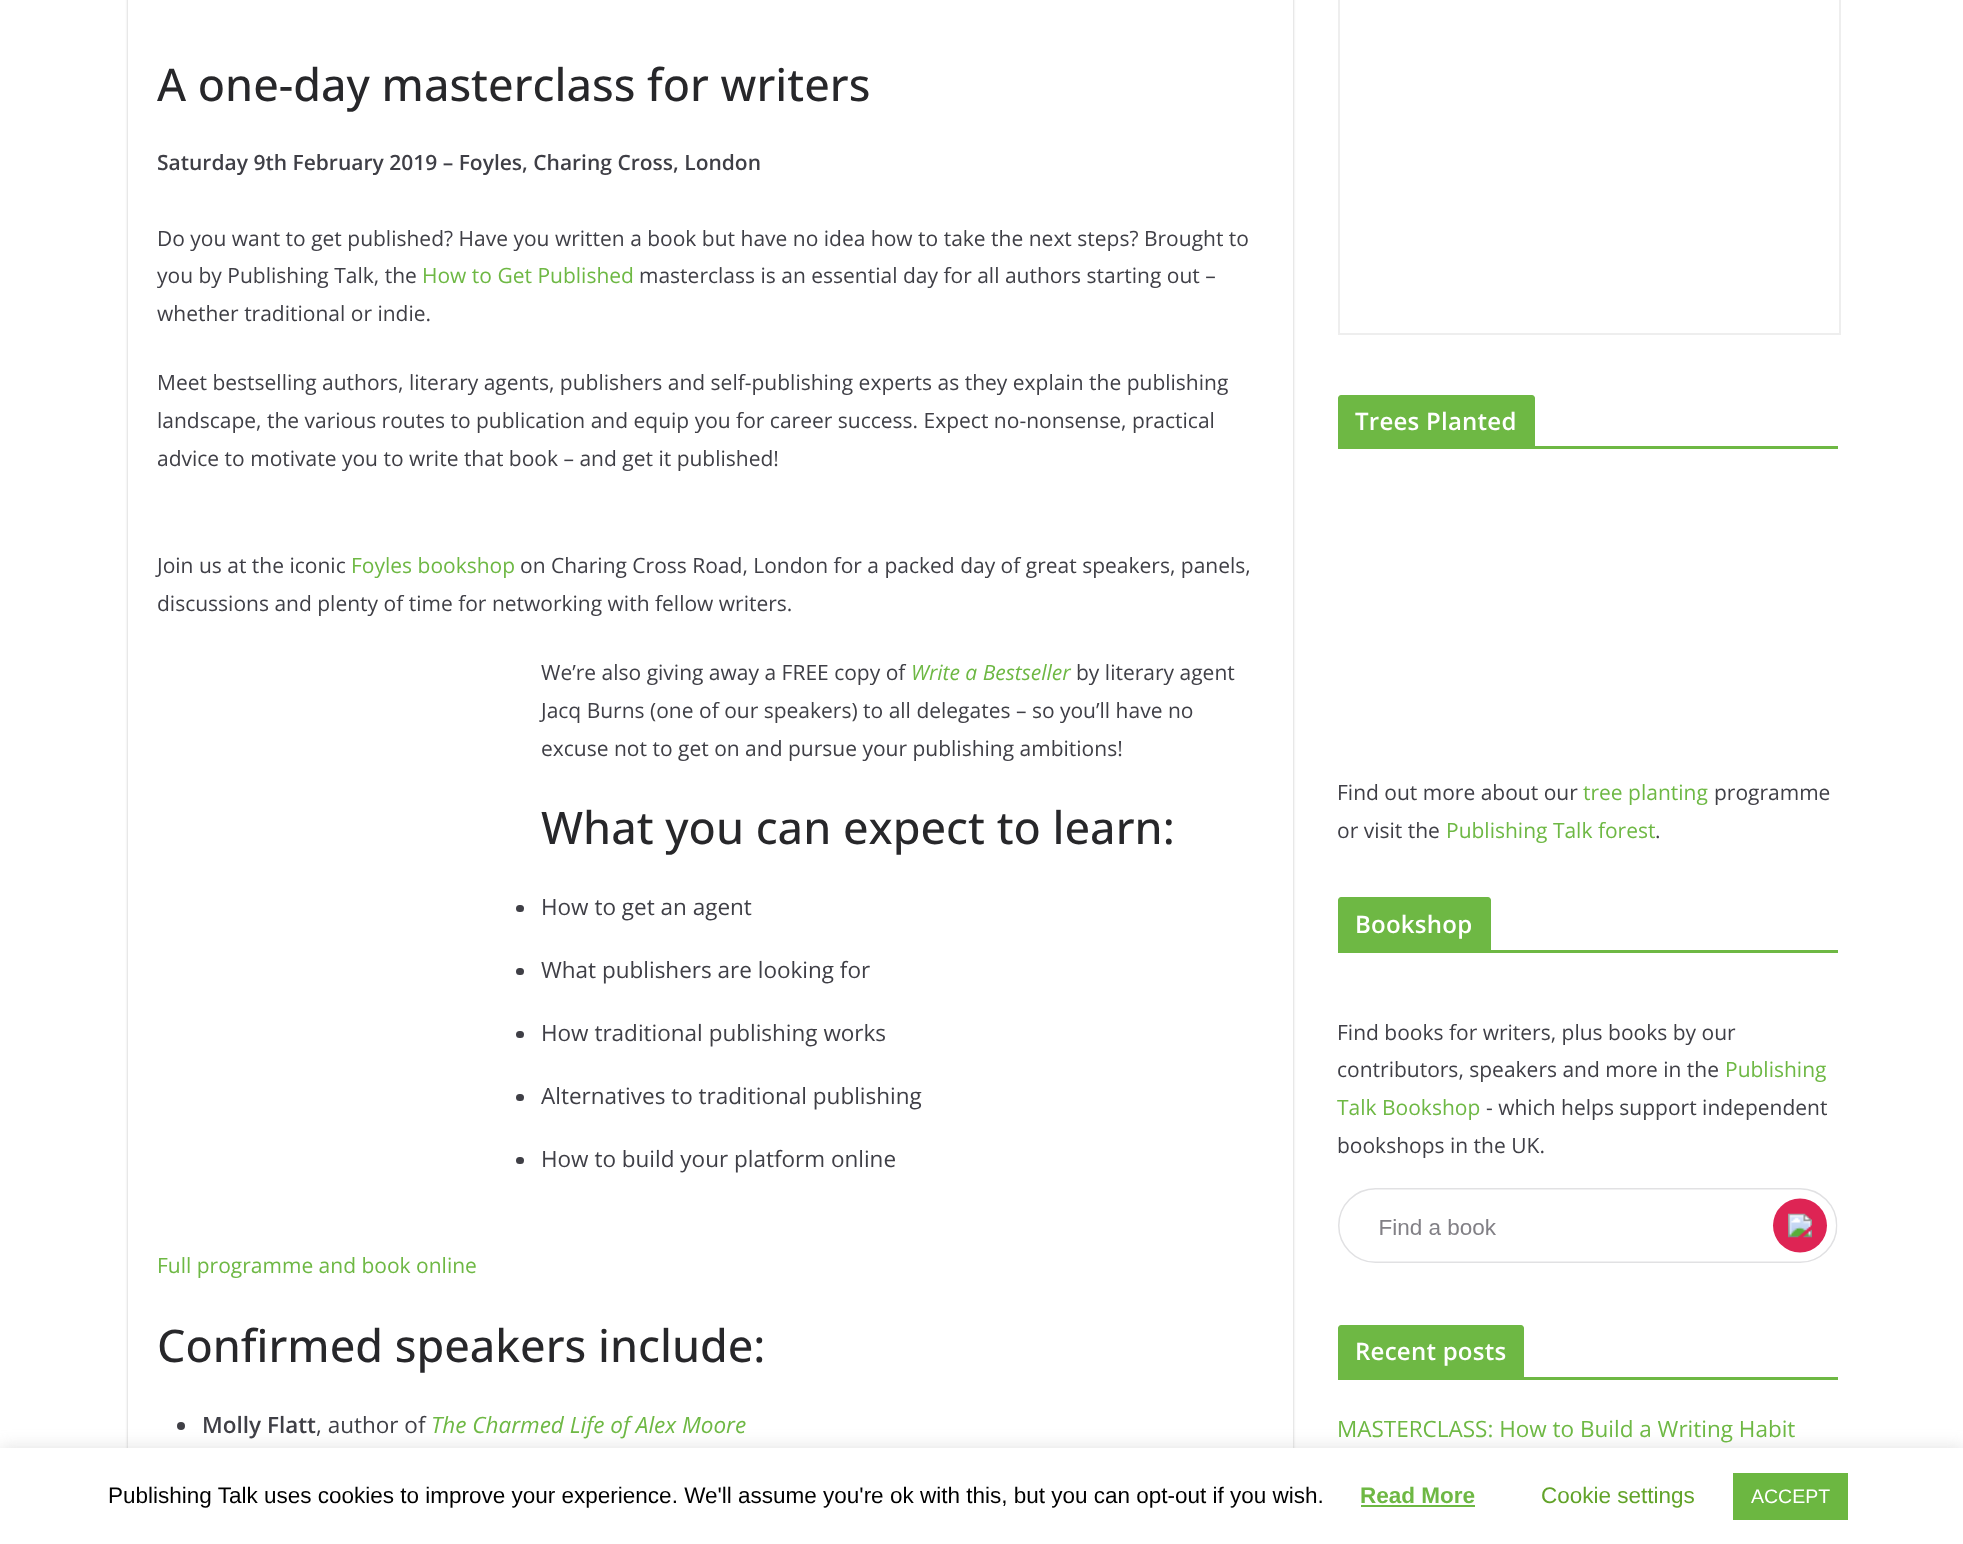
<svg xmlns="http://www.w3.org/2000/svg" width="1963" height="1544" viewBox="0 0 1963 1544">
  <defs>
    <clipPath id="clip1"><path d="M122 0H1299V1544H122ZM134-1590H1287C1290.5-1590 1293-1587.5 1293-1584V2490C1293 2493.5 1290.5 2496 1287 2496H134C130.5 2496 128 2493.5 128 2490V-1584C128-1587.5 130.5-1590 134-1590Z" clip-rule="evenodd"/></clipPath>
  </defs>
  <rect width="100%" height="100%" fill="#fff"/>
  <g clip-path="url(#clip1)">
    <rect x="128" y="-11" width="1165" height="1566" rx="6" fill="#0000003d" filter="blur(1.5px)"/>
  </g>
  <rect x="516" y="905" width="8" height="7" rx="3.5" fill="#3f3f46"/>
  <rect x="516" y="968" width="8" height="7" rx="3.5" fill="#3f3f46"/>
  <rect x="516" y="1031" width="8" height="7" rx="3.5" fill="#3f3f46"/>
  <rect x="516" y="1094" width="8" height="7" rx="3.5" fill="#3f3f46"/>
  <rect x="516" y="1157" width="8" height="7" rx="3.5" fill="#3f3f46"/>
  <circle cx="181" cy="1426" r="4" fill="#3f3f46"/>
  <path d="M1339 -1h501v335H1339z" fill="none" stroke="#eee" stroke-width="2"/>
  <path d="M1338 446h500v3H1338z" fill="#6eb844"/>
  <path d="M1341 395H1532C1533.5 395 1535 396.5 1535 398V446H1338V398C1338 396.5 1339.5 395 1341 395Z" fill="#6eb844"/>
  <path d="M1338 950h500v3H1338z" fill="#6eb844"/>
  <path d="M1341 897H1488C1489.5 897 1491 898.5 1491 900V950H1338V900C1338 898.5 1339.5 897 1341 897Z" fill="#6eb844"/>
  <image x="1338" y="1188" width="500" height="75" href="img/1.png"/>
  <path d="M1338 1377h500v3H1338z" fill="#6eb844"/>
  <path d="M1341 1325H1521C1522.5 1325 1524 1326.5 1524 1328V1377H1338V1328C1338 1326.5 1339.5 1325 1341 1325Z" fill="#6eb844"/>
  <path d="M0 1446h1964v98H0z" fill="#acabab4d" filter="blur(7.5px)"/>
  <path d="M0 1448h1963v96H0z" fill="#fff"/>
  <path d="M1361 1505h114v2H1361z" fill="#6cb741"/>
  <path d="M1733 1473h115v47H1733z" fill="#6cb741"/>
  <text x="157" y="101" font-family="Open Sans" font-size="45" font-weight="500" fill="#27272a">A one-day masterclass for writers</text>
  <text x="157" y="170" font-family="Open Sans" font-size="21" font-weight="600" fill="#3f3f46">Saturday 9th February 2019 – Foyles, Charing Cross, London</text>
  <g font-family="Open Sans" font-size="21" fill="#3f3f46">
    <text x="157" y="246">Do you want to get published? Have you written a book but have no idea how to take the next steps? Brought to</text>
    <text x="157" y="283">you by Publishing Talk, the</text>
  </g>
  <text x="422" y="283" font-family="Open Sans" font-size="21" fill="#6eb844">How to Get Published</text>
  <g font-family="Open Sans" font-size="21" fill="#3f3f46">
    <text x="639" y="283">masterclass is an essential day for all authors starting out –</text>
    <text x="157" y="321">whether traditional or indie.</text>
    <text x="157" y="390">Meet bestselling authors, literary agents, publishers and self-publishing experts as they explain the publishing</text>
    <text x="157" y="428">landscape, the various routes to publication and equip you for career success. Expect no-nonsense, practical</text>
    <text x="157" y="466">advice to motivate you to write that book – and get it published!</text>
    <text x="157" y="573">Join us at the iconic</text>
  </g>
  <text x="351" y="573" font-family="Open Sans" font-size="21" fill="#6eb844">Foyles bookshop</text>
  <g font-family="Open Sans" font-size="21" fill="#3f3f46">
    <text x="520" y="573">on Charing Cross Road, London for a packed day of great speakers, panels,</text>
    <text x="157" y="611">discussions and plenty of time for networking with fellow writers.</text>
    <text x="541" y="680">We’re also giving away a FREE copy of</text>
  </g>
  <text x="911" y="680" font-family="Open Sans" font-size="21" font-style="italic" fill="#6eb844">Write a Bestseller</text>
  <g font-family="Open Sans" font-size="21" fill="#3f3f46">
    <text x="1076" y="680">by literary agent</text>
    <text x="541" y="718">Jacq Burns (one of our speakers) to all delegates – so you’ll have no</text>
    <text x="541" y="756">excuse not to get on and pursue your publishing ambitions!</text>
  </g>
  <text x="541" y="844" font-family="Open Sans" font-size="45" font-weight="500" fill="#27272a">What you can expect to learn:</text>
  <g font-family="Open Sans" font-size="22.5" fill="#3f3f46">
    <text x="541" y="915">How to get an agent</text>
    <text x="541" y="978">What publishers are looking for</text>
    <text x="541" y="1041">How traditional publishing works</text>
    <text x="541" y="1104">Alternatives to traditional publishing</text>
    <text x="541" y="1167">How to build your platform online</text>
  </g>
  <text x="157" y="1273" font-family="Open Sans" font-size="21" fill="#6eb844">Full programme and book online</text>
  <text x="157" y="1362" font-family="Open Sans" font-size="45" font-weight="500" fill="#27272a">Confirmed speakers include:</text>
  <text x="202" y="1433" font-family="Open Sans" font-size="22.5" font-weight="600" fill="#3f3f46">Molly Flatt</text>
  <text x="316" y="1433" font-family="Open Sans" font-size="22.5" fill="#3f3f46">, author of</text>
  <text x="431" y="1433" font-family="Open Sans" font-size="22.5" font-style="italic" fill="#6eb844">The Charmed Life of Alex Moore</text>
  <text x="1355" y="430" font-family="Open Sans" font-size="24" font-weight="600" letter-spacing="0.25" fill="#fff">Trees Planted</text>
  <text x="1337" y="800" font-family="Open Sans" font-size="21" fill="#3f3f46">Find out more about our</text>
  <text x="1583" y="800" font-family="Open Sans" font-size="21" fill="#6eb844">tree planting</text>
  <g font-family="Open Sans" font-size="21" fill="#3f3f46">
    <text x="1714" y="800">programme</text>
    <text x="1337" y="838">or visit the</text>
  </g>
  <text x="1446" y="838" font-family="Open Sans" font-size="21" fill="#6eb844">Publishing Talk forest</text>
  <text x="1655" y="838" font-family="Open Sans" font-size="21" fill="#3f3f46">.</text>
  <text x="1355" y="933" font-family="Open Sans" font-size="24" font-weight="600" letter-spacing="0.25" fill="#fff">Bookshop</text>
  <g font-family="Open Sans" font-size="21" fill="#3f3f46">
    <text x="1337" y="1040">Find books for writers, plus books by our</text>
    <text x="1337" y="1077">contributors, speakers and more in the</text>
  </g>
  <g font-family="Open Sans" font-size="21" fill="#6eb844">
    <text x="1725" y="1077">Publishing</text>
    <text x="1337" y="1115">Talk Bookshop</text>
  </g>
  <g font-family="Open Sans" font-size="21" fill="#3f3f46">
    <text x="1486" y="1115">- which helps support independent</text>
    <text x="1337" y="1153">bookshops in the UK.</text>
  </g>
  <text x="1355" y="1360" font-family="Open Sans" font-size="24" font-weight="600" letter-spacing="0.25" fill="#fff">Recent posts</text>
  <text x="1337" y="1437" font-family="Open Sans" font-size="22.5" fill="#6eb844">MASTERCLASS: How to Build a Writing Habit</text>
  <text x="108" y="1503" font-family="Liberation Sans" font-size="22.5" fill="#000">Publishing Talk uses cookies to improve your experience. We'll assume you're ok with this, but you can opt-out if you wish.</text>
  <text x="1360" y="1503" font-family="Liberation Sans" font-size="22.5" font-weight="bold" fill="#6eb844">Read More</text>
  <text x="1541" y="1503" font-family="Liberation Sans" font-size="22.5" fill="#62a329">Cookie settings</text>
  <text x="1751" y="1503" font-family="Liberation Sans" font-size="19.5" fill="#fff">ACCEPT</text>
</svg>
